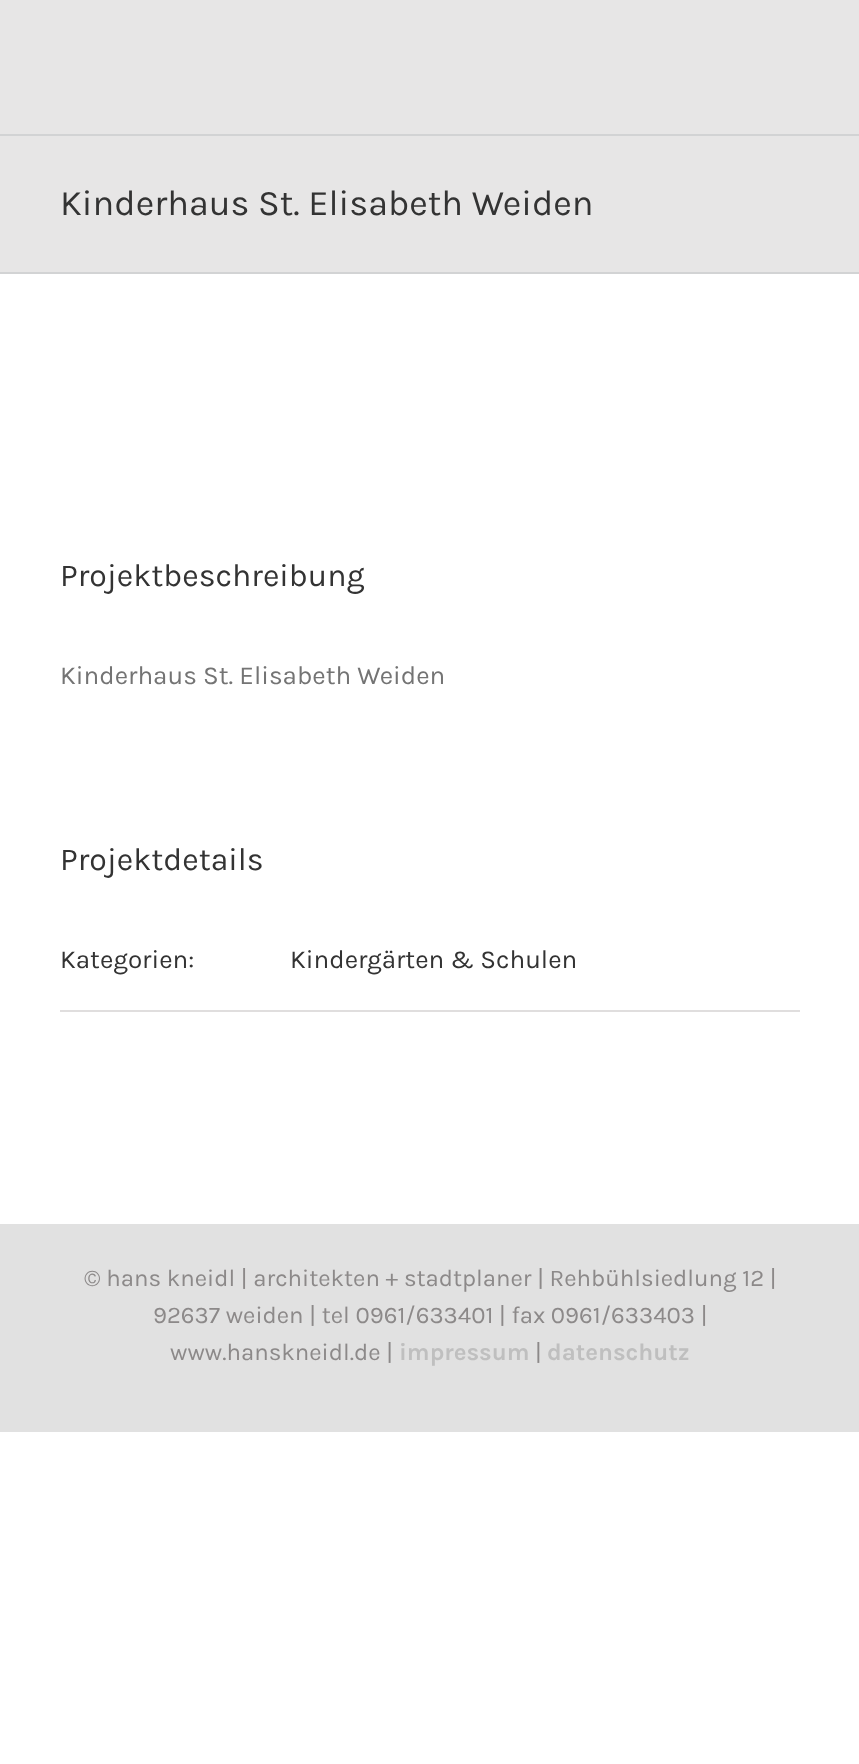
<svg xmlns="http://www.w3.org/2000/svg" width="859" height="1764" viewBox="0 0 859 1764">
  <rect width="100%" height="100%" fill="#fff"/>
  <path d="M0 0h859v134H0z" fill="#e7e6e6"/>
  <path d="M0 136h859v136H0z" fill="#e7e6e6"/>
  <path d="M0 134h859v2H0z" fill="#d2d3d4"/>
  <path d="M0 272h859v2H0z" fill="#d2d3d4"/>
  <path d="M60 1010h740v2H60z" fill="#e0dede"/>
  <path d="M0 1224h859v208H0z" fill="#e1e1e1"/>
  <text x="60" y="215" font-family="Karla" font-size="36" fill="#333">Kinderhaus St. Elisabeth Weiden</text>
  <text x="60" y="586" font-family="Karla" font-size="32" fill="#333">Projektbeschreibung</text>
  <text x="60" y="684" font-family="Karla" font-size="26" fill="#747474">Kinderhaus St. Elisabeth Weiden</text>
  <text x="60" y="870" font-family="Karla" font-size="32" fill="#333">Projektdetails</text>
  <g font-family="Karla" font-size="26" fill="#333">
    <text x="60" y="968">Kategorien:</text>
    <text x="290" y="968">Kindergärten &amp; Schulen</text>
  </g>
  <g font-family="Karla" font-size="24" fill="#8c8989">
    <text x="84" y="1286">© hans kneidl | architekten + stadtplaner | Rehbühlsiedlung 12 |</text>
    <text x="153" y="1323">92637 weiden | tel 0961/633401 | fax 0961/633403 |</text>
    <text x="170" y="1360">www.hanskneidl.de |</text>
  </g>
  <text x="399" y="1360" font-family="Karla" font-size="24" font-weight="bold" fill="#bfbfbf">impressum</text>
  <text x="535" y="1360" font-family="Karla" font-size="24" fill="#8c8989">|</text>
  <text x="547" y="1360" font-family="Karla" font-size="24" font-weight="bold" fill="#bfbfbf">datenschutz</text>
</svg>
